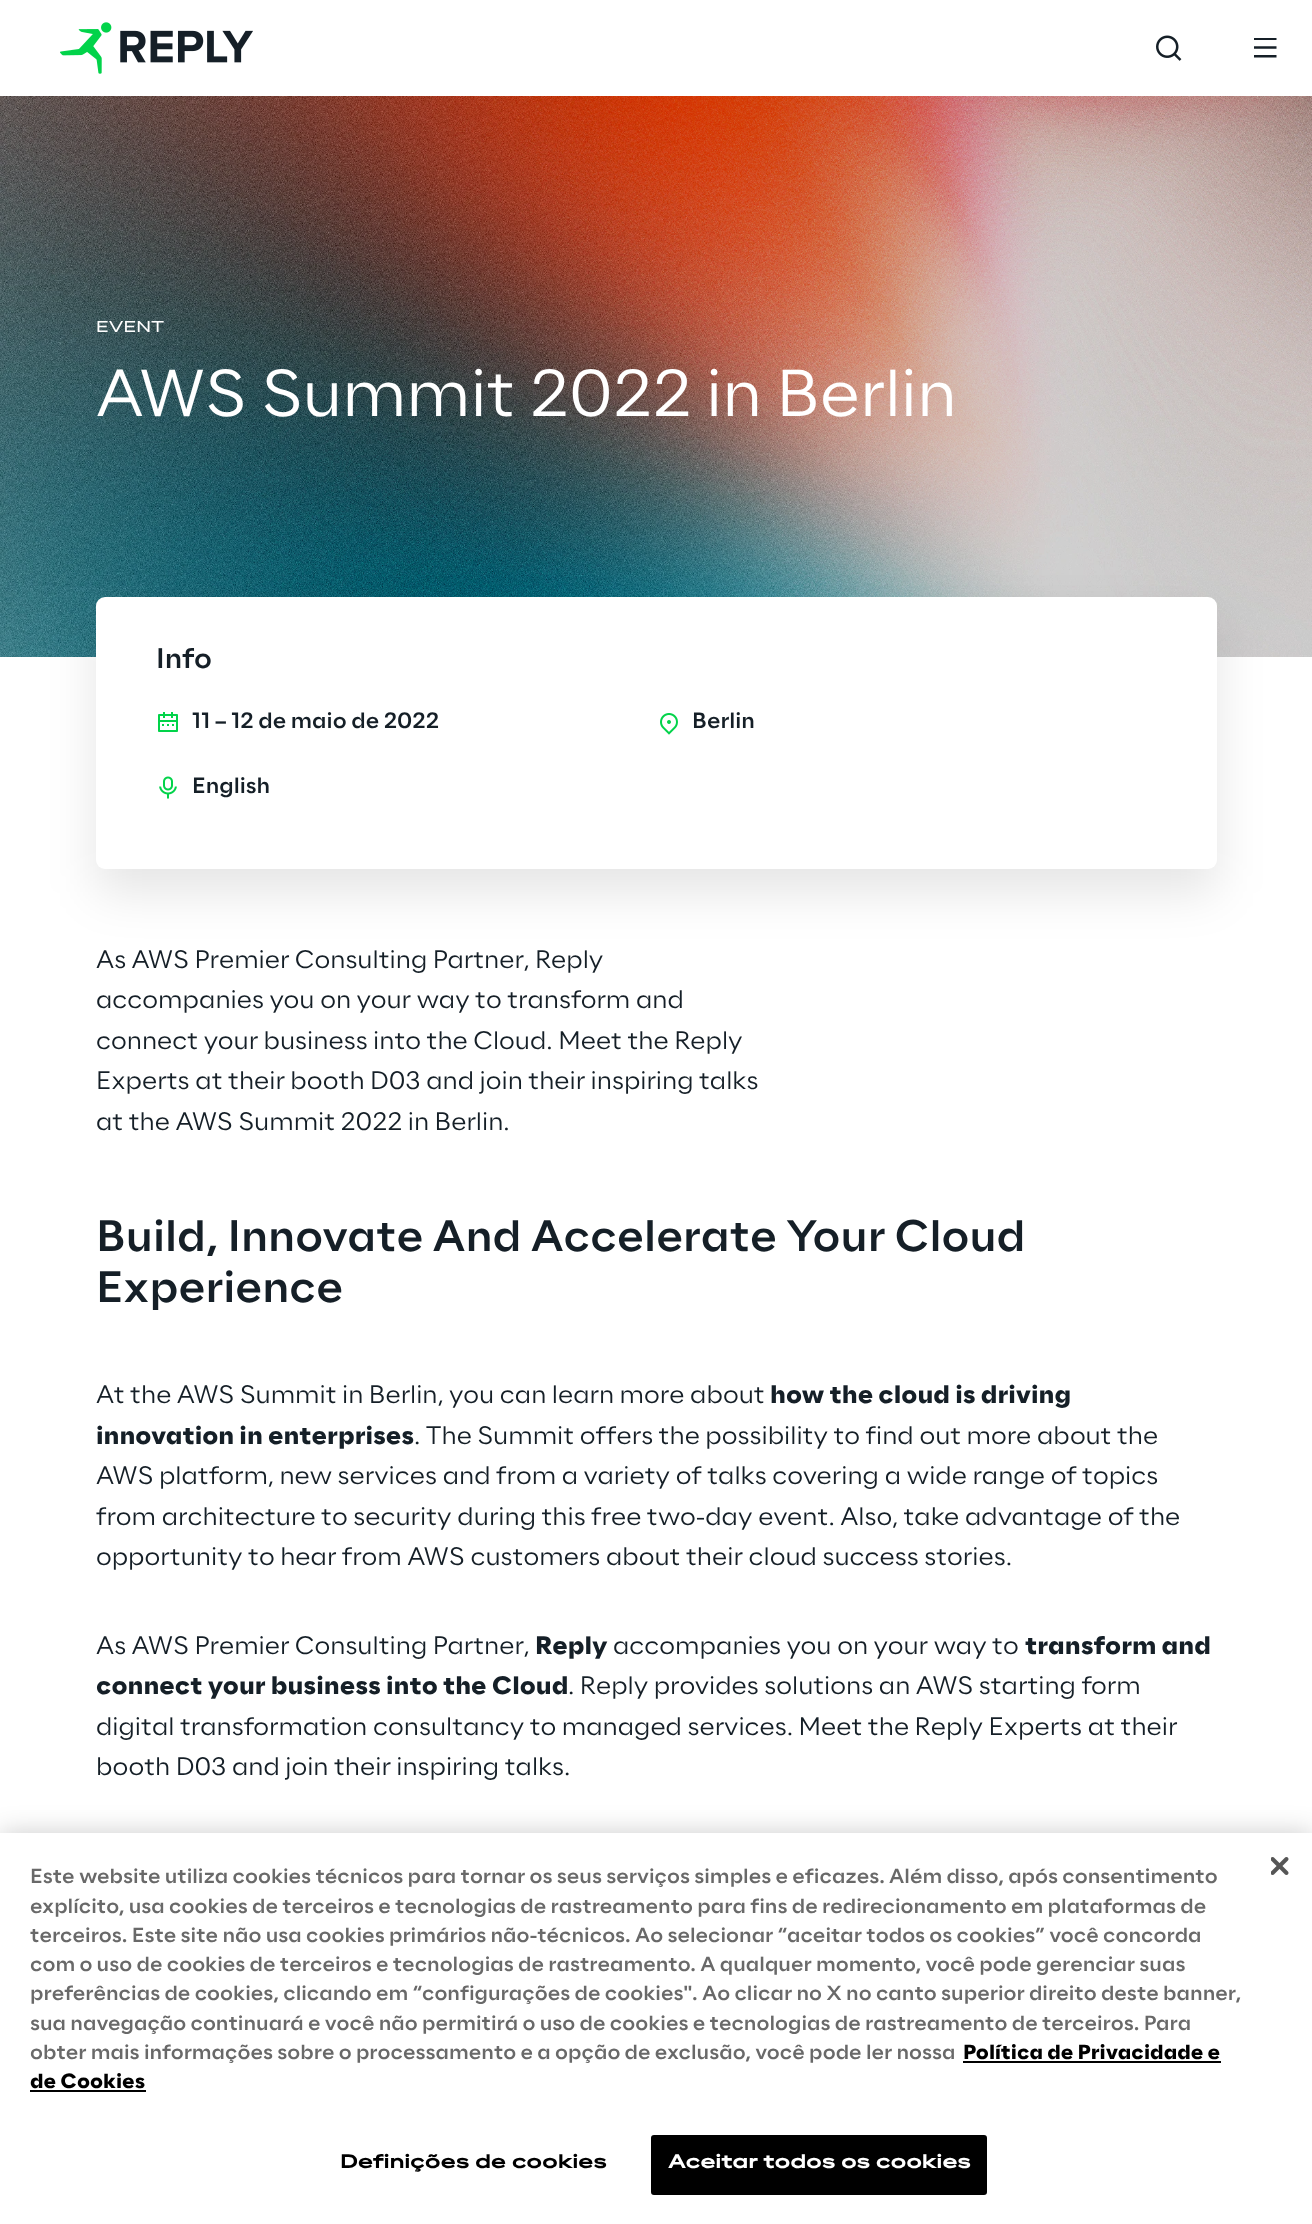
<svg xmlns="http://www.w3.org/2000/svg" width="1312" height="2224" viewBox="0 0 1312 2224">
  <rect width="100%" height="100%" fill="#fff"/>
  <image x="60" y="22" width="193" height="52" href="img/1.png"/>
  <image x="1156" y="35" width="26" height="26" href="img/2.png"/>
  <image x="1254" y="38" width="23" height="20" href="img/3.png"/>
  <image x="0" y="96" width="1312" height="561" href="img/4.png"/>
  <rect x="96" y="621" width="1121" height="272" rx="9" fill="#0000001a" filter="blur(24px)"/>
  <rect x="96" y="597" width="1121" height="272" rx="9" fill="#fff"/>
  <image x="158" y="712" width="20" height="20" href="img/5.png"/>
  <image x="660" y="713" width="18" height="22" href="img/6.png"/>
  <image x="159" y="776" width="18" height="23" href="img/7.png"/>
  <path d="M0 1833h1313v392H0z" fill="#00000033" filter="blur(13.5px)"/>
  <path d="M0 1833h1312v391H0z" fill="#fff"/>
  <image x="1271" y="1857" width="18" height="18" href="img/8.png"/>
  <path d="M963 2061h258v2H963z" fill="#000"/>
  <path d="M30 2090h116v2H30z" fill="#000"/>
  <rect x="652" y="2136" width="334" height="58" rx="2" fill="#000" stroke="#000" stroke-width="2"/>
  <text x="96" y="332" font-family="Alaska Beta" font-size="15" fill="#fff">EVENT</text>
  <text x="96" y="416" font-family="Alaska Beta" font-size="63" font-weight="300" fill="#fff">AWS Summit 2022 in Berlin</text>
  <text x="156" y="668" font-family="Alaska Beta" font-size="27" font-weight="500" fill="#151f27">Info</text>
  <g font-family="Alaska Beta" font-size="21" font-weight="500" fill="#151f27">
    <text x="192" y="728">11 – 12 de maio de 2022</text>
    <text x="692" y="728">Berlin</text>
    <text x="192" y="793">English</text>
  </g>
  <g font-family="Alaska Beta" font-size="24" font-weight="300" fill="#151f27">
    <text x="96" y="968">As AWS Premier Consulting Partner, Reply</text>
    <text x="96" y="1008">accompanies you on your way to transform and</text>
    <text x="96" y="1049">connect your business into the Cloud. Meet the Reply</text>
    <text x="96" y="1089">Experts at their booth D03 and join their inspiring talks</text>
    <text x="96" y="1130">at the AWS Summit 2022 in Berlin.</text>
  </g>
  <g font-family="Alaska Beta" font-size="42" font-weight="500" fill="#151f27">
    <text x="96" y="1251">Build, Innovate And Accelerate Your Cloud</text>
    <text x="96" y="1302">Experience</text>
  </g>
  <text x="96" y="1403" font-family="Alaska Beta" font-size="24" font-weight="300" fill="#151f27">At the AWS Summit in Berlin, you can learn more about</text>
  <g font-family="Alaska Beta" font-size="24" font-weight="bold" fill="#151f27">
    <text x="770" y="1403">how the cloud is driving</text>
    <text x="96" y="1444">innovation in enterprises</text>
  </g>
  <g font-family="Alaska Beta" font-size="24" font-weight="300" fill="#151f27">
    <text x="414" y="1444">. The Summit offers the possibility to find out more about the</text>
    <text x="96" y="1484">AWS platform, new services and from a variety of talks covering a wide range of topics</text>
    <text x="96" y="1525">from architecture to security during this free two-day event. Also, take advantage of the</text>
    <text x="96" y="1565">opportunity to hear from AWS customers about their cloud success stories.</text>
    <text x="96" y="1654">As AWS Premier Consulting Partner,</text>
  </g>
  <text x="535" y="1654" font-family="Alaska Beta" font-size="24" font-weight="bold" fill="#151f27">Reply</text>
  <text x="613" y="1654" font-family="Alaska Beta" font-size="24" font-weight="300" fill="#151f27">accompanies you on your way to</text>
  <g font-family="Alaska Beta" font-size="24" font-weight="bold" fill="#151f27">
    <text x="1025" y="1654">transform and</text>
    <text x="96" y="1694">connect your business into the Cloud</text>
  </g>
  <g font-family="Alaska Beta" font-size="24" font-weight="300" fill="#151f27">
    <text x="568" y="1694">. Reply provides solutions an AWS starting form</text>
    <text x="96" y="1735">digital transformation consultancy to managed services. Meet the Reply Experts at their</text>
    <text x="96" y="1775">booth D03 and join their inspiring talks.</text>
  </g>
  <g font-family="Alaska Beta" font-size="19.5" font-weight="500" fill="#696969">
    <text x="30" y="1883">Este website utiliza cookies técnicos para tornar os seus serviços simples e eficazes. Além disso, após consentimento</text>
    <text x="30" y="1913">explícito, usa cookies de terceiros e tecnologias de rastreamento para fins de redirecionamento em plataformas de</text>
    <text x="30" y="1942">terceiros. Este site não usa cookies primários não-técnicos.</text>
    <text x="635" y="1942">Ao selecionar “aceitar todos os cookies” você concorda</text>
    <text x="30" y="1971">com o uso de cookies de terceiros e tecnologias de rastreamento. A qualquer momento, você pode gerenciar suas</text>
    <text x="30" y="2000">preferências de cookies, clicando em “configurações de cookies". Ao clicar no X no canto superior direito deste banner,</text>
    <text x="30" y="2030">sua navegação continuará e você não permitirá o uso de cookies e tecnologias de rastreamento de terceiros. Para</text>
    <text x="30" y="2059">obter mais informações sobre o processamento e a opção de exclusão, você pode ler nossa</text>
  </g>
  <g font-family="Alaska Beta" font-size="19.5" font-weight="bold" fill="#000">
    <text x="963" y="2059">Política de Privacidade e</text>
    <text x="30" y="2088">de Cookies</text>
  </g>
  <text x="340" y="2168" font-family="'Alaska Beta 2'" font-size="18" font-weight="bold" letter-spacing="0.2" fill="#000">Definições de cookies</text>
  <text x="668" y="2168" font-family="'Alaska Beta 2'" font-size="18" font-weight="bold" letter-spacing="0.2" fill="#fff">Aceitar todos os cookies</text>
</svg>
